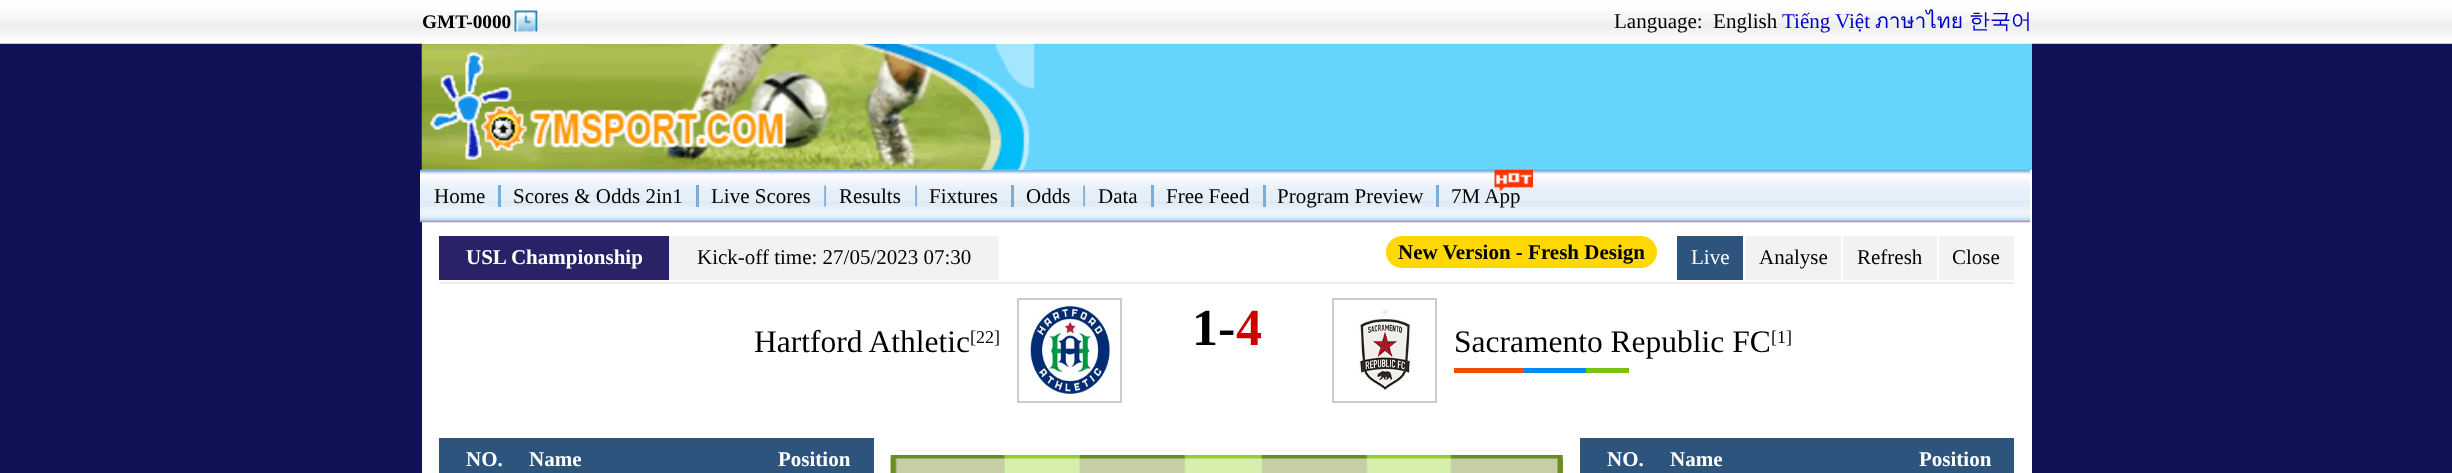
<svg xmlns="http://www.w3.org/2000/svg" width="2452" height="473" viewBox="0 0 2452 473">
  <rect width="100%" height="100%" fill="#115"/>
  <image x="0" y="0" width="2452" height="44" href="img/1.png"/>
  <path d="M422 7h1610v466H422z" fill="#fff"/>
  <path d="M1034 43h998v127H1034z" fill="#66d5fe"/>
  <image x="420" y="169" width="1610" height="54" href="img/5.png"/>
  <image x="421" y="43" width="614" height="127" href="img/4.png"/>
  <image x="421" y="11" width="1611" height="33" href="img/2.png"/>
  <image x="514" y="10" width="24" height="22" href="img/3.png"/>
  <path d="M498 185h3v22H498z" fill="#7cadd6"/>
  <path d="M696 185h3v22H696z" fill="#7cadd6"/>
  <image x="824" y="185" width="2" height="22" href="img/6.png"/>
  <image x="915" y="185" width="2" height="22" href="img/6.png"/>
  <path d="M1011 185h3v22H1011z" fill="#7cadd6"/>
  <image x="1083" y="185" width="2" height="22" href="img/6.png"/>
  <path d="M1151 185h3v22H1151z" fill="#7cadd6"/>
  <path d="M1263 185h3v22H1263z" fill="#7cadd6"/>
  <path d="M1436 185h3v22H1436z" fill="#7cadd6"/>
  <path d="M669 236h330v44H669z" fill="#f2f2f2"/>
  <path d="M439 236h230v44H439z" fill="#292266"/>
  <rect x="1386" y="236" width="271" height="32" rx="16" fill="#ffd800"/>
  <path d="M1677 236h66v44H1677z" fill="#2c547d"/>
  <path d="M1745 236h96v44H1745z" fill="#f2f2f2"/>
  <path d="M1843 236h94v44H1843z" fill="#f2f2f2"/>
  <path d="M1939 236h75v44H1939z" fill="#f2f2f2"/>
  <path d="M439 282h1575v2H439z" fill="#ededed"/>
  <path d="M1018 299h103v103H1018z" fill="none" stroke="#ccc" stroke-width="2"/>
  <image x="1030" y="306" width="80" height="88" href="img/8.png"/>
  <path d="M1333 299h103v103H1333z" fill="none" stroke="#ccc" stroke-width="2"/>
  <image x="1359" y="309" width="52" height="82" href="img/9.png"/>
  <path d="M1454 368h70v5H1454z" fill="#f24d00"/>
  <path d="M1524 368h62v5H1524z" fill="#008bf8"/>
  <path d="M1586 368h43v5H1586z" fill="#79c10b"/>
  <path d="M439 438h435v35H439z" fill="#2c547d"/>
  <image x="890" y="455" width="673" height="18" href="img/10.png"/>
  <image x="890" y="458" width="673" height="15" href="img/11.png"/>
  <path d="M1580 438h434v35H1580z" fill="#2c547d"/>
  <text x="422" y="28" font-family="Liberation Serif" font-size="19.25" font-weight="bold" fill="#000">GMT-0000</text>
  <text x="1614" y="28" font-family="Liberation Serif" font-size="21" fill="#000" xml:space="preserve">Language:  English</text>
  <text x="1782" y="28" font-family="Liberation Serif" font-size="21" fill="#00c">Tiếng Việt</text>
  <text x="1875" y="28" font-family="Loma" font-size="21" fill="#00c">ภาษาไทย</text>
  <text x="1969" y="28" font-family="WenQuanYi Zen Hei" font-size="21" font-weight="500" fill="#00c">한국어</text>
  <g font-family="Liberation Serif" font-size="21" fill="#000">
    <text x="434" y="203">Home</text>
    <text x="513" y="203">Scores &amp; Odds 2in1</text>
    <text x="711" y="203">Live Scores</text>
    <text x="839" y="203">Results</text>
    <text x="929" y="203">Fixtures</text>
    <text x="1026" y="203">Odds</text>
    <text x="1098" y="203">Data</text>
    <text x="1166" y="203">Free Feed</text>
    <text x="1277" y="203">Program Preview</text>
    <text x="1451" y="203">7M App</text>
  </g>
  <image x="1494" y="169" width="39" height="22" href="img/7.png"/>
  <text x="466" y="264" font-family="Liberation Serif" font-size="21" font-weight="bold" fill="#fff">USL Championship</text>
  <text x="697" y="264" font-family="Liberation Serif" font-size="21" fill="#000">Kick-off time: 27/05/2023 07:30</text>
  <text x="1398" y="259" font-family="Liberation Serif" font-size="21" font-weight="bold" fill="#000">New Version - Fresh Design</text>
  <text x="1691" y="264" font-family="Liberation Serif" font-size="21" fill="#fff">Live</text>
  <g font-family="Liberation Serif" font-size="21" fill="#000">
    <text x="1759" y="264">Analyse</text>
    <text x="1857" y="264">Refresh</text>
    <text x="1952" y="264">Close</text>
  </g>
  <text x="754" y="352" font-family="Liberation Serif" font-size="31.5" fill="#000">Hartford Athletic</text>
  <text x="970" y="343" font-family="Liberation Serif" font-size="18" fill="#000">[22]</text>
  <text x="1192" y="345" font-family="Liberation Serif" font-size="52" font-weight="bold" fill="#000">1-</text>
  <text x="1236" y="345" font-family="Liberation Serif" font-size="52" font-weight="bold" fill="#ce0000">4</text>
  <text x="1454" y="352" font-family="Liberation Serif" font-size="31.5" fill="#000">Sacramento Republic FC</text>
  <text x="1771" y="343" font-family="Liberation Serif" font-size="18" fill="#000">[1]</text>
  <g font-family="Liberation Serif" font-size="21" font-weight="bold" fill="#fff">
    <text x="466" y="466">NO.</text>
    <text x="529" y="466">Name</text>
    <text x="778" y="466">Position</text>
    <text x="1607" y="466">NO.</text>
    <text x="1670" y="466">Name</text>
    <text x="1919" y="466">Position</text>
  </g>
</svg>
